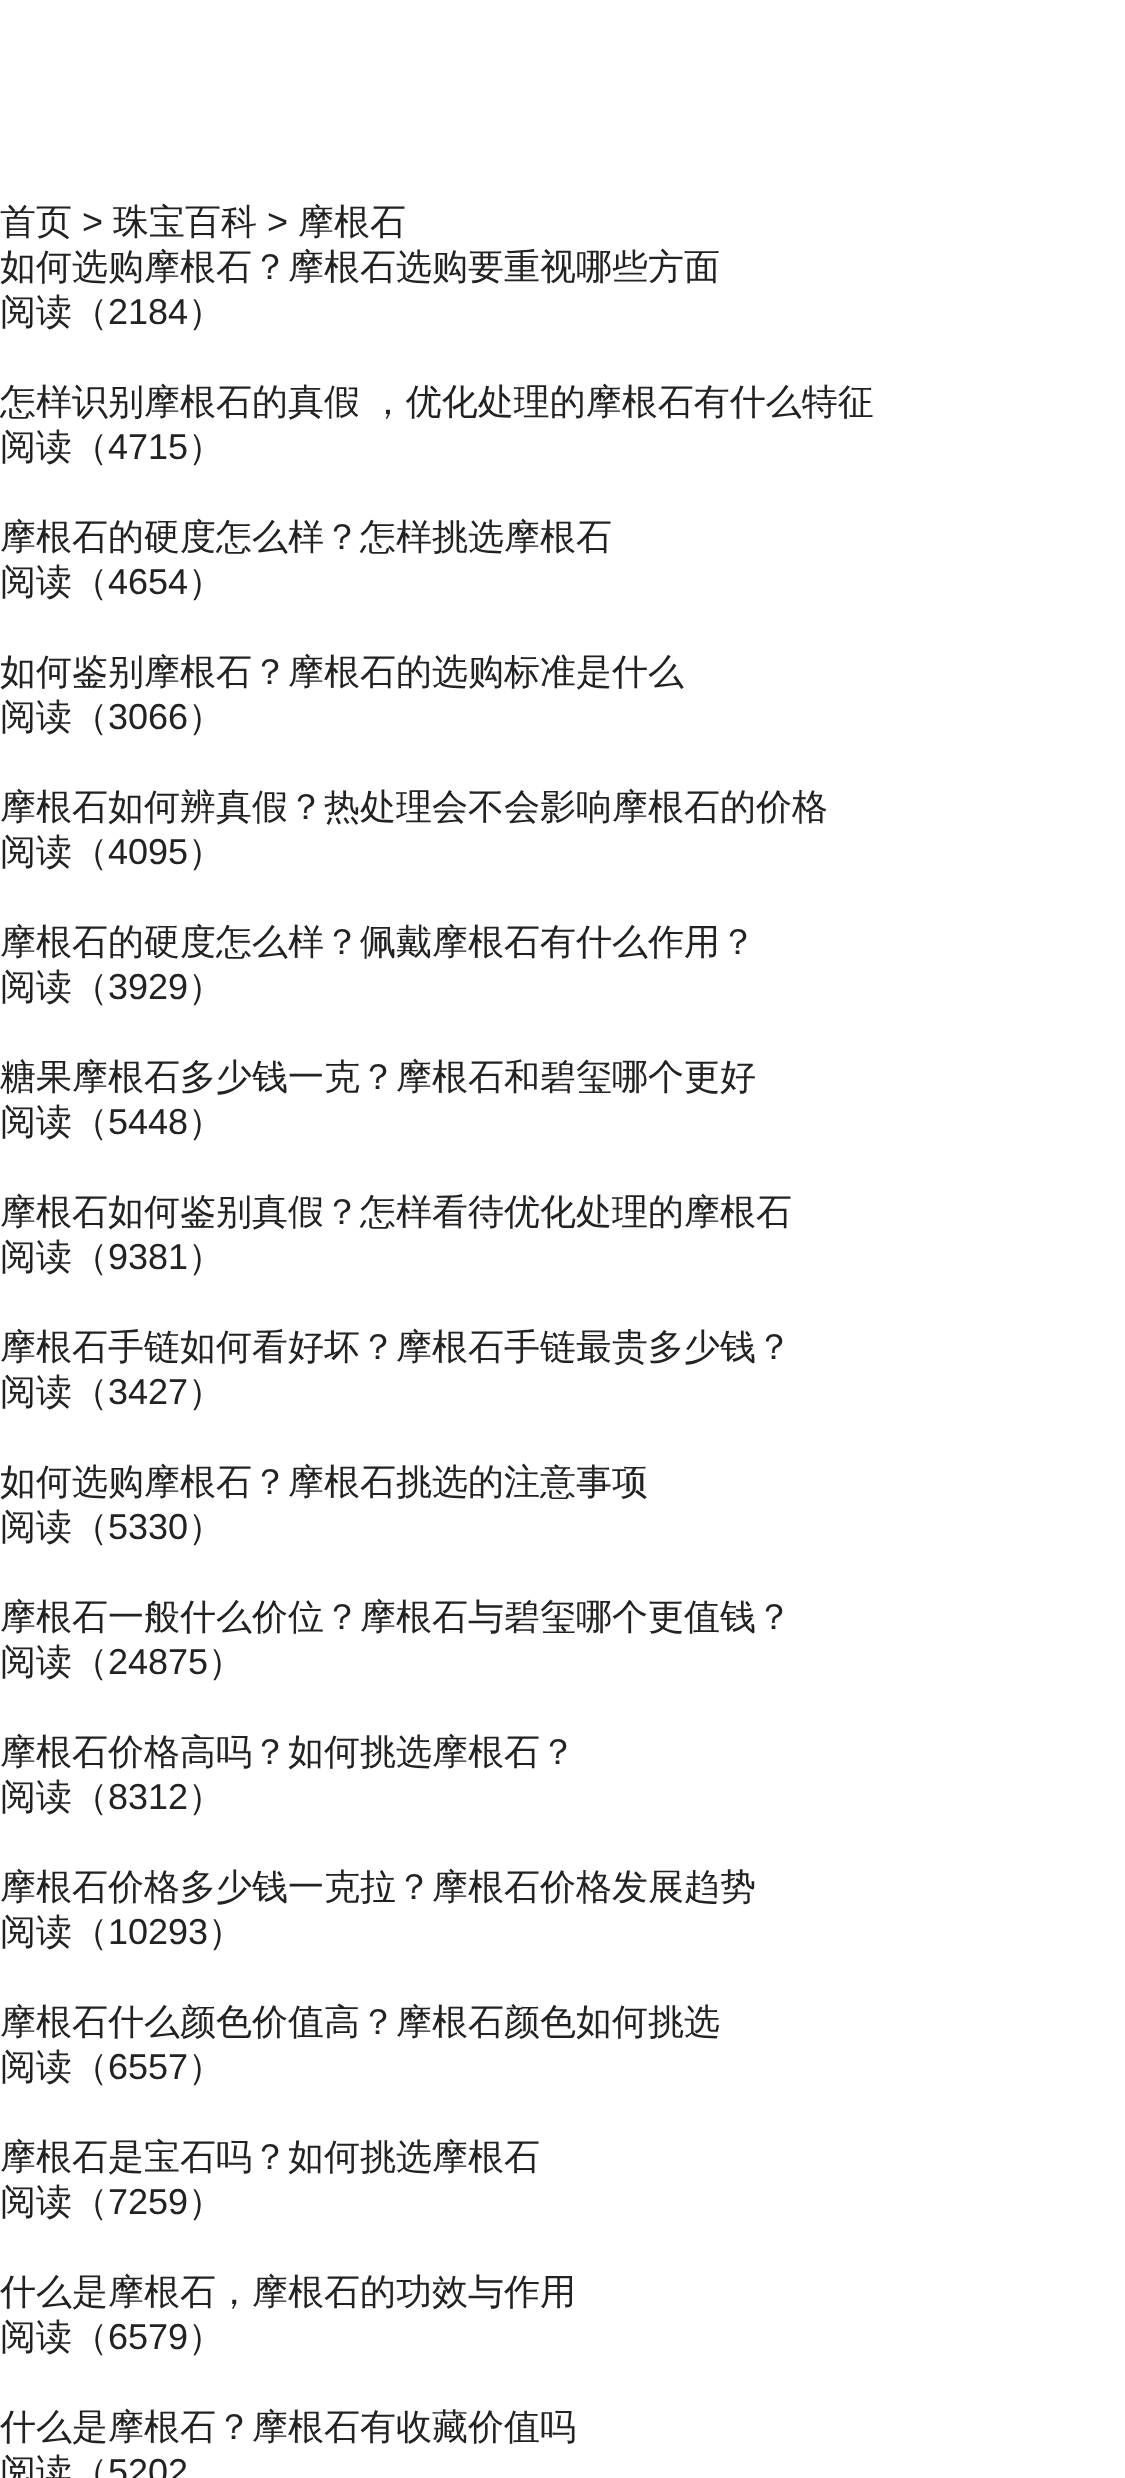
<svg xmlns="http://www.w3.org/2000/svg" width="1125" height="2478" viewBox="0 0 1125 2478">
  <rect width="100%" height="100%" fill="#fff"/>
  <text x="0" y="234" font-family="WenQuanYi Zen Hei" font-size="36" font-weight="500" fill="#222">首页</text>
  <text x="82" y="234" font-family="Liberation Sans" font-size="36" fill="#222">&gt;</text>
  <text x="113" y="234" font-family="WenQuanYi Zen Hei" font-size="36" font-weight="500" fill="#222">珠宝百科</text>
  <text x="267" y="234" font-family="Liberation Sans" font-size="36" fill="#222">&gt;</text>
  <g font-family="WenQuanYi Zen Hei" font-size="36" font-weight="500" fill="#222">
    <text x="298" y="234">摩根石</text>
    <text x="0" y="279">如何选购摩根石？摩根石选购要重视哪些方面</text>
    <text x="0" y="324">阅读（</text>
  </g>
  <text x="108" y="324" font-family="Liberation Sans" font-size="36" fill="#222">2184</text>
  <g font-family="WenQuanYi Zen Hei" font-size="36" font-weight="500" fill="#222">
    <text x="188" y="324">）</text>
    <text x="0" y="414" word-spacing="-1">怎样识别摩根石的真假 ，优化处理的摩根石有什么特征</text>
    <text x="0" y="459">阅读（</text>
  </g>
  <text x="108" y="459" font-family="Liberation Sans" font-size="36" fill="#222">4715</text>
  <g font-family="WenQuanYi Zen Hei" font-size="36" font-weight="500" fill="#222">
    <text x="188" y="459">）</text>
    <text x="0" y="549">摩根石的硬度怎么样？怎样挑选摩根石</text>
    <text x="0" y="594">阅读（</text>
  </g>
  <text x="108" y="594" font-family="Liberation Sans" font-size="36" fill="#222">4654</text>
  <g font-family="WenQuanYi Zen Hei" font-size="36" font-weight="500" fill="#222">
    <text x="188" y="594">）</text>
    <text x="0" y="684">如何鉴别摩根石？摩根石的选购标准是什么</text>
    <text x="0" y="729">阅读（</text>
  </g>
  <text x="108" y="729" font-family="Liberation Sans" font-size="36" fill="#222">3066</text>
  <g font-family="WenQuanYi Zen Hei" font-size="36" font-weight="500" fill="#222">
    <text x="188" y="729">）</text>
    <text x="0" y="819">摩根石如何辨真假？热处理会不会影响摩根石的价格</text>
    <text x="0" y="864">阅读（</text>
  </g>
  <text x="108" y="864" font-family="Liberation Sans" font-size="36" fill="#222">4095</text>
  <g font-family="WenQuanYi Zen Hei" font-size="36" font-weight="500" fill="#222">
    <text x="188" y="864">）</text>
    <text x="0" y="954">摩根石的硬度怎么样？佩戴摩根石有什么作用？</text>
    <text x="0" y="999">阅读（</text>
  </g>
  <text x="108" y="999" font-family="Liberation Sans" font-size="36" fill="#222">3929</text>
  <g font-family="WenQuanYi Zen Hei" font-size="36" font-weight="500" fill="#222">
    <text x="188" y="999">）</text>
    <text x="0" y="1089">糖果摩根石多少钱一克？摩根石和碧玺哪个更好</text>
    <text x="0" y="1134">阅读（</text>
  </g>
  <text x="108" y="1134" font-family="Liberation Sans" font-size="36" fill="#222">5448</text>
  <g font-family="WenQuanYi Zen Hei" font-size="36" font-weight="500" fill="#222">
    <text x="188" y="1134">）</text>
    <text x="0" y="1224">摩根石如何鉴别真假？怎样看待优化处理的摩根石</text>
    <text x="0" y="1269">阅读（</text>
  </g>
  <text x="108" y="1269" font-family="Liberation Sans" font-size="36" fill="#222">9381</text>
  <g font-family="WenQuanYi Zen Hei" font-size="36" font-weight="500" fill="#222">
    <text x="188" y="1269">）</text>
    <text x="0" y="1359">摩根石手链如何看好坏？摩根石手链最贵多少钱？</text>
    <text x="0" y="1404">阅读（</text>
  </g>
  <text x="108" y="1404" font-family="Liberation Sans" font-size="36" fill="#222">3427</text>
  <g font-family="WenQuanYi Zen Hei" font-size="36" font-weight="500" fill="#222">
    <text x="188" y="1404">）</text>
    <text x="0" y="1494">如何选购摩根石？摩根石挑选的注意事项</text>
    <text x="0" y="1539">阅读（</text>
  </g>
  <text x="108" y="1539" font-family="Liberation Sans" font-size="36" fill="#222">5330</text>
  <g font-family="WenQuanYi Zen Hei" font-size="36" font-weight="500" fill="#222">
    <text x="188" y="1539">）</text>
    <text x="0" y="1629">摩根石一般什么价位？摩根石与碧玺哪个更值钱？</text>
    <text x="0" y="1674">阅读（</text>
  </g>
  <text x="108" y="1674" font-family="Liberation Sans" font-size="36" fill="#222">24875</text>
  <g font-family="WenQuanYi Zen Hei" font-size="36" font-weight="500" fill="#222">
    <text x="208" y="1674">）</text>
    <text x="0" y="1764">摩根石价格高吗？如何挑选摩根石？</text>
    <text x="0" y="1809">阅读（</text>
  </g>
  <text x="108" y="1809" font-family="Liberation Sans" font-size="36" fill="#222">8312</text>
  <g font-family="WenQuanYi Zen Hei" font-size="36" font-weight="500" fill="#222">
    <text x="188" y="1809">）</text>
    <text x="0" y="1899">摩根石价格多少钱一克拉？摩根石价格发展趋势</text>
    <text x="0" y="1944">阅读（</text>
  </g>
  <text x="108" y="1944" font-family="Liberation Sans" font-size="36" fill="#222">10293</text>
  <g font-family="WenQuanYi Zen Hei" font-size="36" font-weight="500" fill="#222">
    <text x="208" y="1944">）</text>
    <text x="0" y="2034">摩根石什么颜色价值高？摩根石颜色如何挑选</text>
    <text x="0" y="2079">阅读（</text>
  </g>
  <text x="108" y="2079" font-family="Liberation Sans" font-size="36" fill="#222">6557</text>
  <g font-family="WenQuanYi Zen Hei" font-size="36" font-weight="500" fill="#222">
    <text x="188" y="2079">）</text>
    <text x="0" y="2169">摩根石是宝石吗？如何挑选摩根石</text>
    <text x="0" y="2214">阅读（</text>
  </g>
  <text x="108" y="2214" font-family="Liberation Sans" font-size="36" fill="#222">7259</text>
  <g font-family="WenQuanYi Zen Hei" font-size="36" font-weight="500" fill="#222">
    <text x="188" y="2214">）</text>
    <text x="0" y="2304">什么是摩根石，摩根石的功效与作用</text>
    <text x="0" y="2349">阅读（</text>
  </g>
  <text x="108" y="2349" font-family="Liberation Sans" font-size="36" fill="#222">6579</text>
  <g font-family="WenQuanYi Zen Hei" font-size="36" font-weight="500" fill="#222">
    <text x="188" y="2349">）</text>
    <text x="0" y="2439">什么是摩根石？摩根石有收藏价值吗</text>
    <text x="0" y="2484">阅读（</text>
  </g>
  <text x="108" y="2484" font-family="Liberation Sans" font-size="36" fill="#222">5202</text>
</svg>
